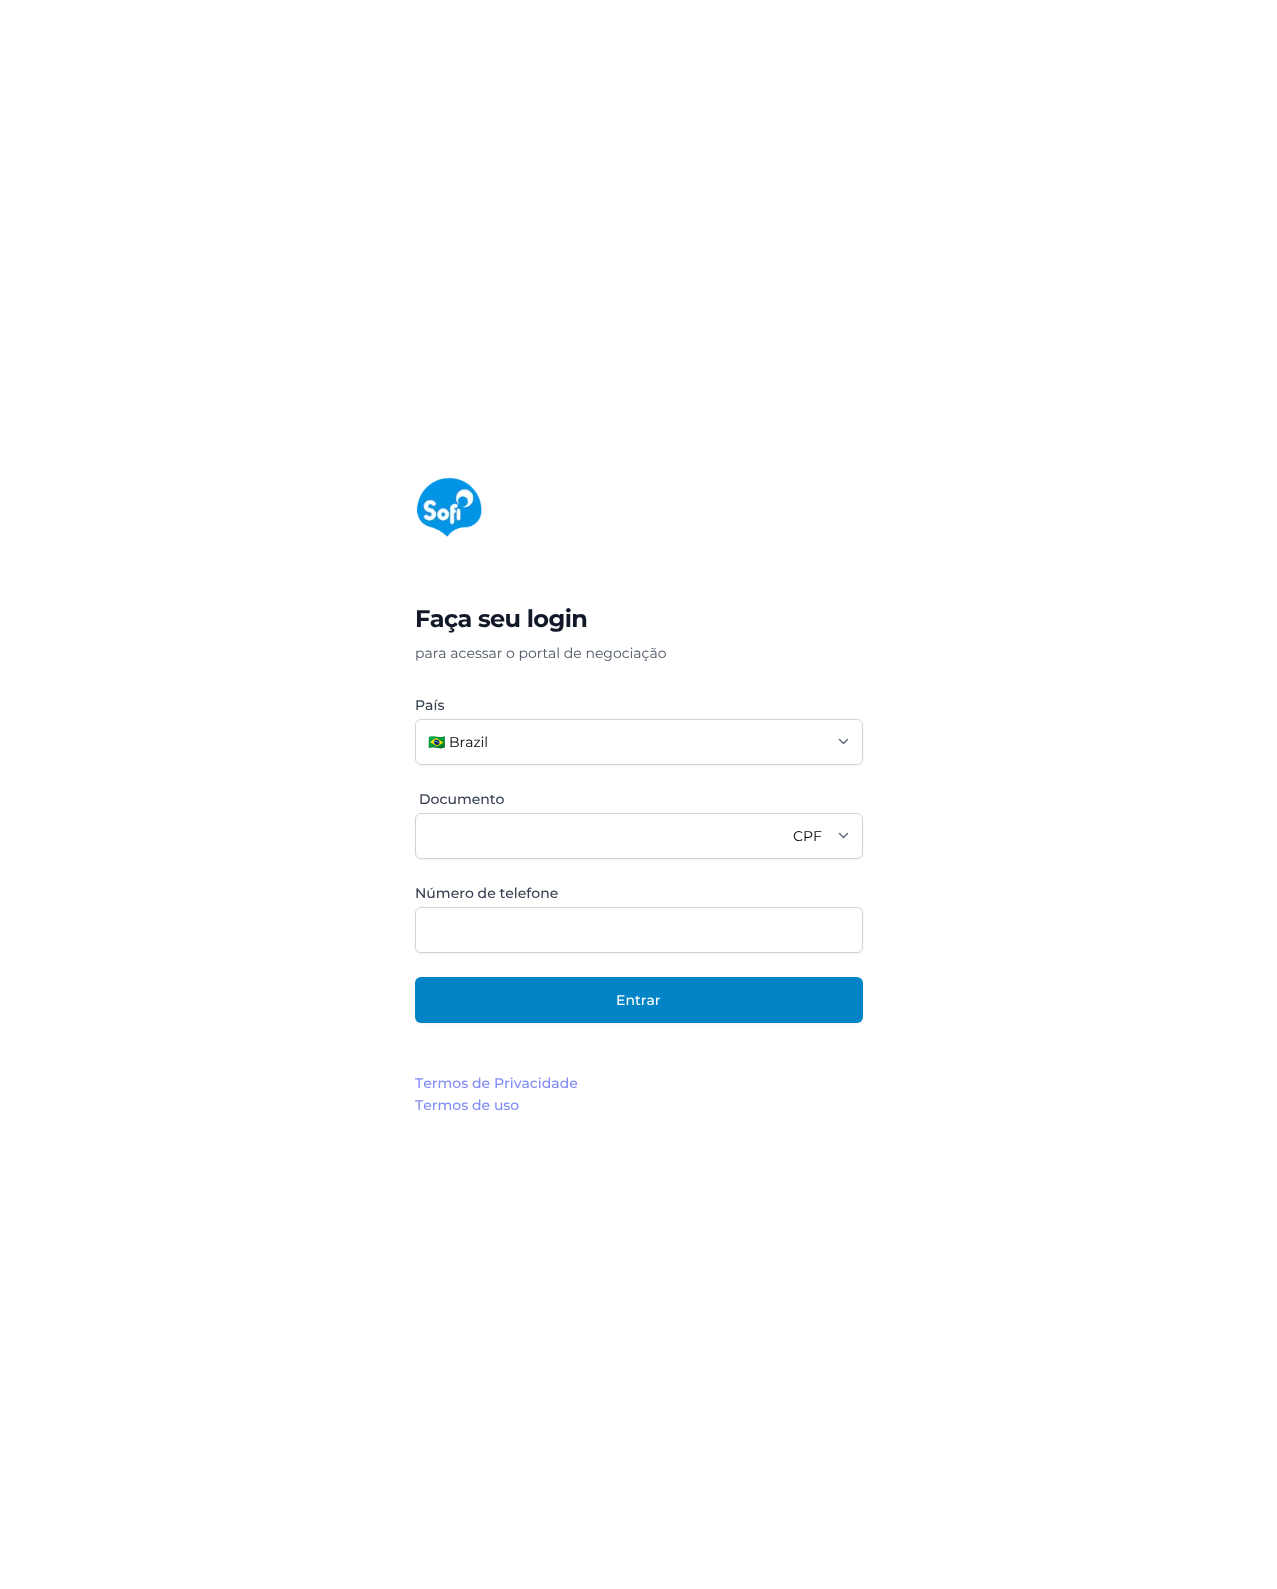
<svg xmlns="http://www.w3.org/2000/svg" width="1277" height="1589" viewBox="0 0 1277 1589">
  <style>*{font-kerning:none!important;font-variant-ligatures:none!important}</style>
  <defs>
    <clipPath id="clip1"><path d="M428 732h422v20H428z"/></clipPath>
  </defs>
  <rect width="100%" height="100%" fill="#fff"/>
  <image x="416" y="477" width="66" height="60" href="img/1.png"/>
  <rect x="415" y="720" width="448" height="46" rx="6" fill="#0000000d" filter="blur(1px)"/>
  <rect x="415" y="719" width="448" height="46" rx="6" fill="#fff"/>
  <path d="M839.5 739.5L843.5 743.5L847.5 739.5" fill="none" stroke="#6b7280" stroke-width="1.6" stroke-linecap="round" stroke-linejoin="round"/>
  <rect x="415.5" y="719.5" width="447" height="45" rx="5.5" fill="none" stroke="#d1d5db"/>
  <rect x="415" y="814" width="448" height="46" rx="6" fill="#0000000d" filter="blur(1px)"/>
  <rect x="415.5" y="813.5" width="447" height="45" rx="5.5" fill="#fff" stroke="#d1d5db"/>
  <path d="M839.5 833.5L843.5 837.5L847.5 833.5" fill="none" stroke="#6b7280" stroke-width="1.6" stroke-linecap="round" stroke-linejoin="round"/>
  <rect x="415" y="908" width="448" height="46" rx="6" fill="#0000000d" filter="blur(1px)"/>
  <rect x="415.5" y="907.5" width="447" height="45" rx="5.5" fill="#fff" stroke="#d1d5db"/>
  <rect x="415" y="978" width="448" height="46" rx="6" fill="#0000000d" filter="blur(1px)"/>
  <rect x="415" y="977" width="448" height="46" rx="6" fill="#0284c7"/>
  <text x="415" y="627" font-family="Montserrat" font-size="24" font-weight="bold" letter-spacing="-0.6" fill="#111827">Faça seu login</text>
  <text x="415" y="658" font-family="Montserrat" font-size="14" fill="#4b5563">para acessar o portal de negociação</text>
  <text x="415" y="710" font-family="Montserrat" font-size="14" font-weight="500" fill="#374151">País</text>
  <g clip-path="url(#clip1)">
    <text x="428" y="747" font-family="Noto Color Emoji" font-size="14" fill="#000">🇧🇷</text>
  </g>
  <text x="449" y="747" font-family="Montserrat" font-size="14" fill="#000">Brazil</text>
  <text x="419" y="804" font-family="Montserrat" font-size="14" font-weight="500" fill="#374151">Documento</text>
  <text x="793" y="841" font-family="Montserrat" font-size="14" fill="#000">CPF</text>
  <text x="415" y="898" font-family="Montserrat" font-size="14" font-weight="500" fill="#374151">Número de telefone</text>
  <text x="616" y="1005" font-family="Montserrat" font-size="14" font-weight="500" fill="#fff">Entrar</text>
  <g font-family="Montserrat" font-size="14" font-weight="500" fill="#818cf8">
    <text x="415" y="1088">Termos de Privacidade</text>
    <text x="415" y="1110">Termos de uso</text>
  </g>
</svg>
